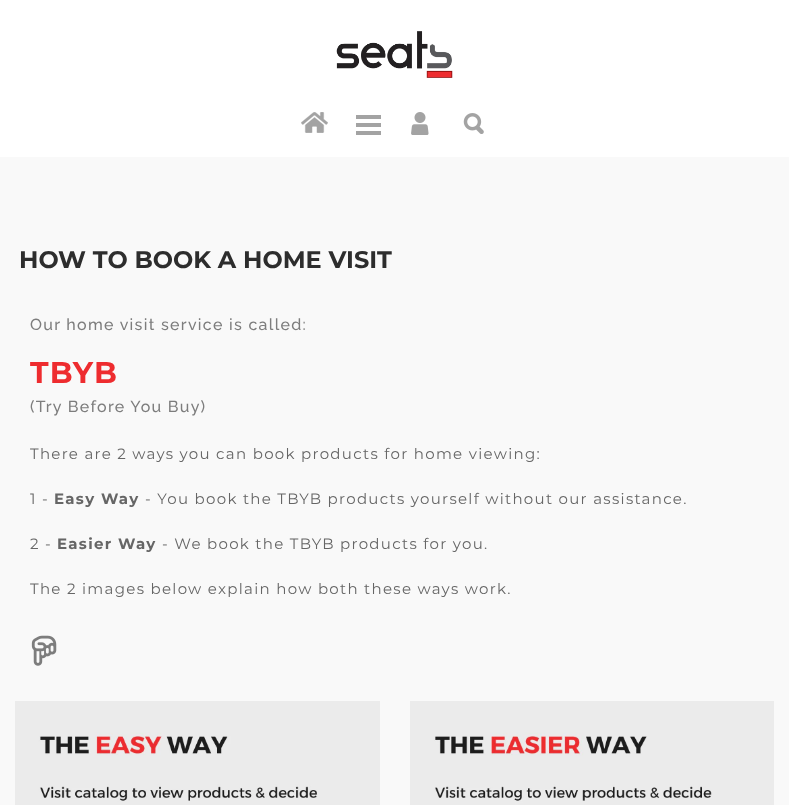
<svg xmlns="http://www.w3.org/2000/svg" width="789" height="805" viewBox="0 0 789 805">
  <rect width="100%" height="100%" fill="#f9f9f9"/>
  <path d="M0 0h789v157H0z" fill="#fff"/>
  <image x="336" y="31" width="117" height="47" href="img/1.png"/>
  <image x="301" y="112" width="27" height="21" href="img/2.png"/>
  <path d="M356 115h25v4H356z" fill="#a3a3a3"/>
  <path d="M356 123h25v4H356z" fill="#a3a3a3"/>
  <path d="M356 131h25v4H356z" fill="#a3a3a3"/>
  <image x="411" y="112" width="18" height="23" href="img/3.png"/>
  <image x="463" y="113" width="21" height="21" href="img/4.png"/>
  <image x="31" y="635" width="26" height="31" href="img/5.png"/>
  <image x="15" y="701" width="365" height="104" href="img/6.png"/>
  <image x="410" y="701" width="364" height="104" href="img/7.png"/>
  <text x="19" y="268" font-family="Montserrat" font-size="24" font-weight="bold" fill="#2d2d2d">HOW TO BOOK A HOME VISIT</text>
  <text x="30" y="330" font-family="Raleway" font-size="16" font-weight="500" letter-spacing="1.3" fill="#7d7d7d">Our home visit service is called:</text>
  <text x="30" y="383" font-family="Montserrat" font-size="30" font-weight="bold" letter-spacing="1.3" fill="#ee2c2f">TBYB</text>
  <text x="30" y="412" font-family="Raleway" font-size="16" font-weight="500" letter-spacing="1.3" fill="#7d7d7d">(Try Before You Buy)</text>
  <g font-family="Montserrat" font-size="15" letter-spacing="1.3" fill="#666">
    <text x="30" y="459">There are 2 ways you can book products for home viewing:</text>
    <text x="30" y="504">1 -</text>
  </g>
  <text x="54" y="504" font-family="Montserrat" font-size="15" font-weight="bold" letter-spacing="1.3" fill="#666">Easy Way</text>
  <g font-family="Montserrat" font-size="15" letter-spacing="1.3" fill="#666">
    <text x="145" y="504">- You book the TBYB products yourself without our assistance.</text>
    <text x="30" y="549">2 -</text>
  </g>
  <text x="57" y="549" font-family="Montserrat" font-size="15" font-weight="bold" letter-spacing="1.3" fill="#666">Easier Way</text>
  <g font-family="Montserrat" font-size="15" letter-spacing="1.3" fill="#666">
    <text x="162" y="549">- We book the TBYB products for you.</text>
    <text x="30" y="594">The 2 images below explain how both these ways work.</text>
  </g>
</svg>
